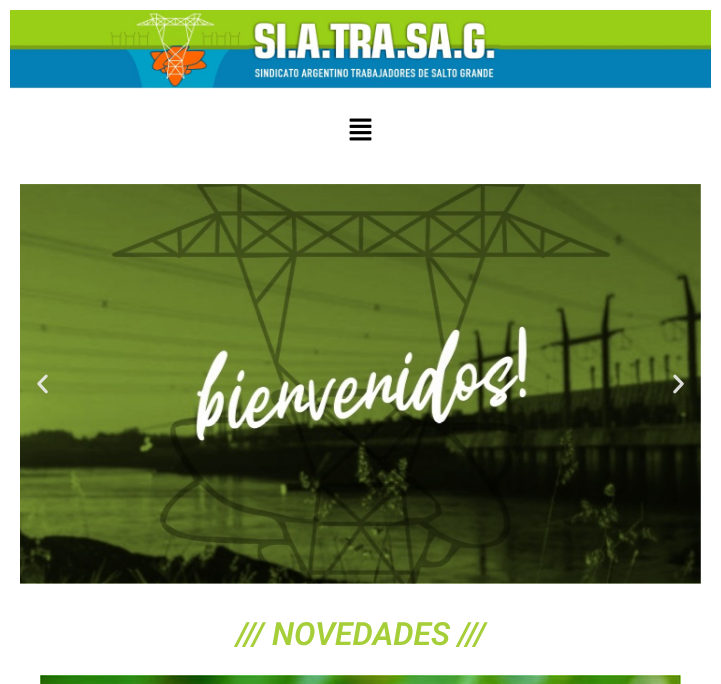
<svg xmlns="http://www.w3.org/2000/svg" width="721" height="684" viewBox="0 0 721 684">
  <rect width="100%" height="100%" fill="#fff"/>
  <image x="10" y="10" width="701" height="79" href="img/1.png"/>
  <image x="349" y="118" width="23" height="23" href="img/2.png"/>
  <image x="20" y="184" width="681" height="400" href="img/3.png"/>
  <image x="37" y="374" width="11" height="20" href="img/4.png"/>
  <image x="673" y="374" width="11" height="20" href="img/5.png"/>
  <image x="40" y="675" width="641" height="9" href="img/6.png"/>
  <text x="236" y="645" font-family="Roboto" font-size="32" font-weight="600" font-style="italic" fill="#a6ce39">/// NOVEDADES ///</text>
</svg>
